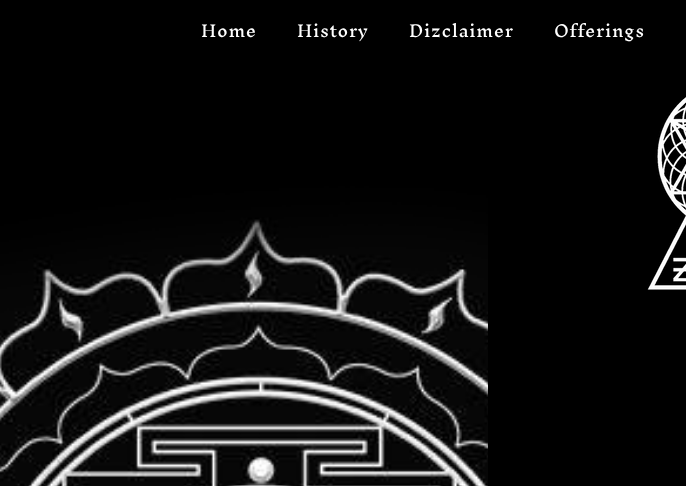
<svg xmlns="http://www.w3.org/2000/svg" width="686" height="486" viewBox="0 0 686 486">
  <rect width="100%" height="100%" fill="#fff"/>
  <image x="0" y="0" width="488" height="486" href="img/1.png"/>
  <path d="M488 0h198v486H488z" fill="#000"/>
  <image x="647" y="97" width="39" height="193" href="img/2.png"/>
  <g font-family="Inknut Antiqua" font-size="16" letter-spacing="0.75" fill="#fff">
    <text x="201" y="37">Home</text>
    <text x="297" y="37">History</text>
    <text x="409" y="37">Dizclaimer</text>
    <text x="554" y="37">Offerings</text>
  </g>
</svg>
